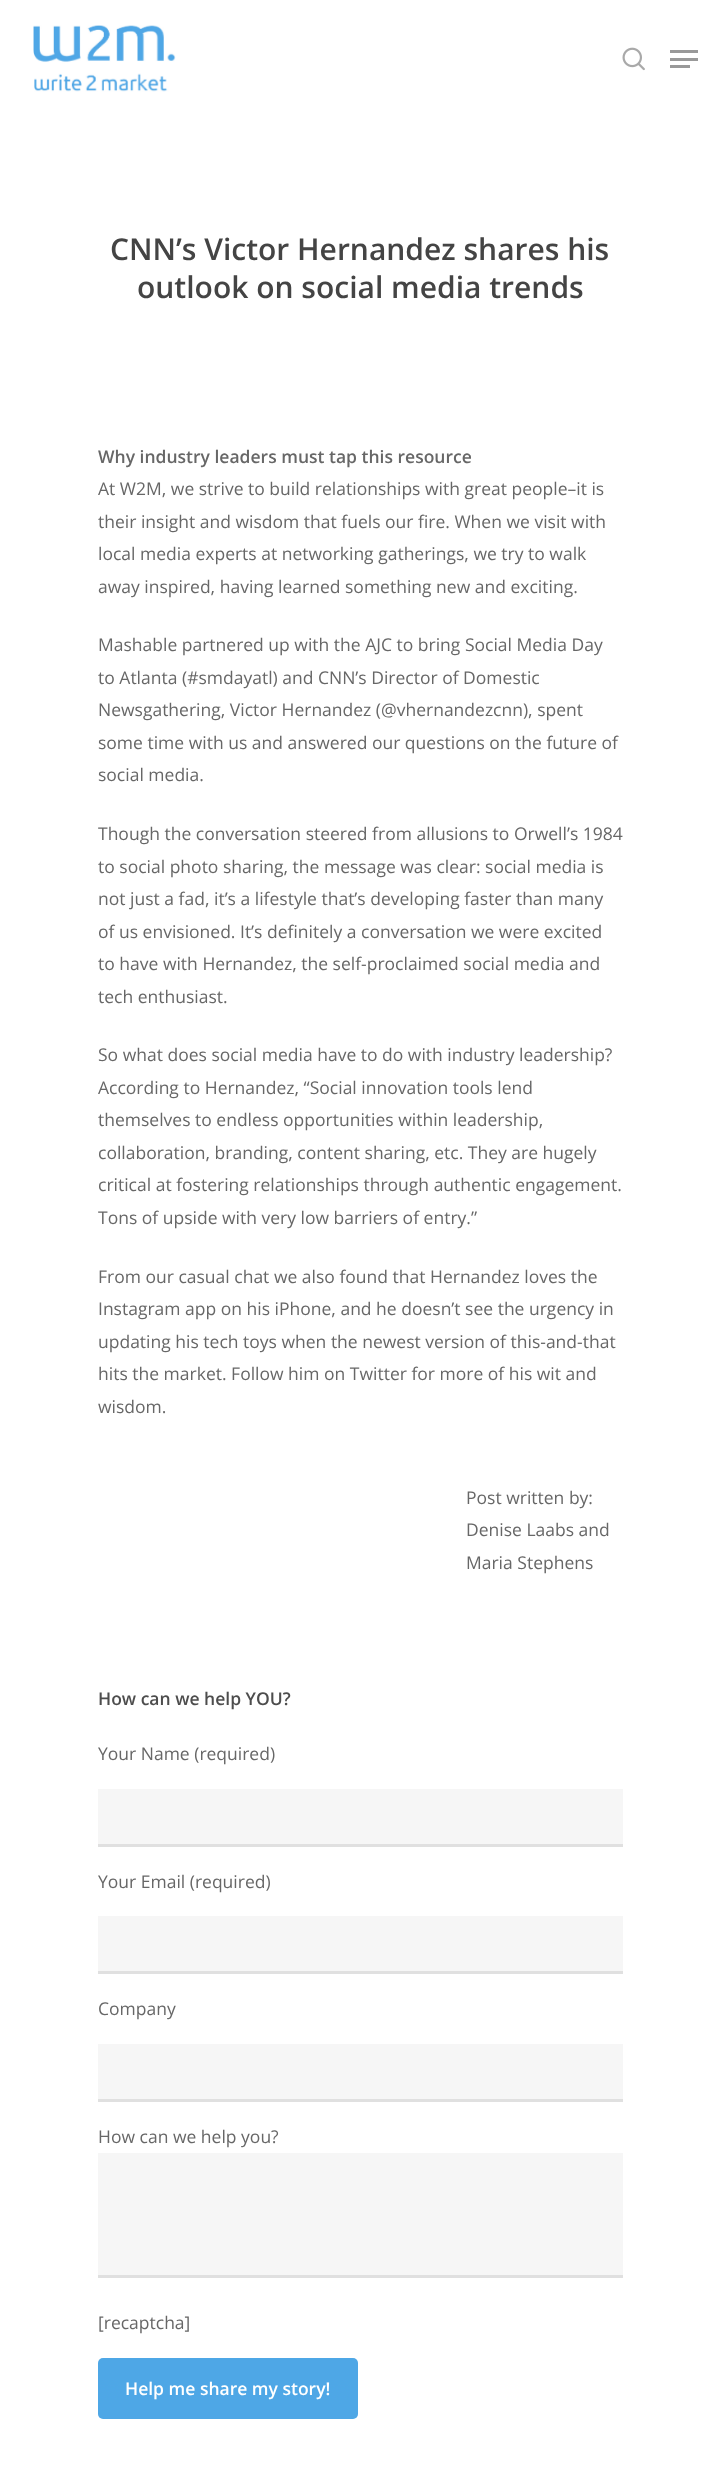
<svg xmlns="http://www.w3.org/2000/svg" width="719" height="2472" viewBox="0 0 719 2472">
  <rect width="100%" height="100%" fill="#fff"/>
  <image x="33" y="25" width="143" height="67" href="img/1.png"/>
  <image x="622" y="47" width="23" height="24" href="img/2.png"/>
  <path d="M670 50h28v3H670z" fill="#999"/>
  <path d="M670 65h20v3H670z" fill="#999"/>
  <path d="M670 58h28v3H670z" fill="#999"/>
  <path d="M98 1789h525v55H98z" fill="#f6f6f6"/>
  <path d="M98 1844h525v3H98z" fill="#e0e0e0"/>
  <path d="M98 1916h525v55H98z" fill="#f6f6f6"/>
  <path d="M98 1971h525v3H98z" fill="#e0e0e0"/>
  <path d="M98 2044h525v55H98z" fill="#f6f6f6"/>
  <path d="M98 2099h525v3H98z" fill="#e0e0e0"/>
  <path d="M98 2153h525v122H98z" fill="#f6f6f6"/>
  <path d="M98 2275h525v3H98z" fill="#e0e0e0"/>
  <rect x="98" y="2358" width="260" height="61" rx="5" fill="#4ea7e6"/>
  <g font-family="Open Sans" font-size="30" font-weight="600" fill="#444">
    <text x="110" y="260">CNN’s Victor Hernandez shares his</text>
    <text x="137" y="298">outlook on social media trends</text>
  </g>
  <text x="98" y="463" font-family="Open Sans" font-size="17.5" font-weight="600" fill="#676767">Why industry leaders must tap this resource</text>
  <g font-family="Open Sans" font-size="17.5" fill="#676767">
    <text x="98" y="495">At W2M, we strive to build relationships with great people–it is</text>
    <text x="98" y="528">their insight and wisdom that fuels our fire. When we visit with</text>
    <text x="98" y="560">local media experts at networking gatherings, we try to walk</text>
    <text x="98" y="593">away inspired, having learned something new and exciting.</text>
    <text x="98" y="651">Mashable partnered up with the AJC to bring Social Media Day</text>
    <text x="98" y="684">to Atlanta (#smdayatl) and CNN’s Director of Domestic</text>
    <text x="98" y="716">Newsgathering, Victor Hernandez (@vhernandezcnn), spent</text>
    <text x="98" y="749">some time with us and answered our questions on the future of</text>
    <text x="98" y="781">social media.</text>
    <text x="98" y="840">Though the conversation steered from allusions to Orwell’s 1984</text>
    <text x="98" y="873">to social photo sharing, the message was clear: social media is</text>
    <text x="98" y="905">not just a fad, it’s a lifestyle that’s developing faster than many</text>
    <text x="98" y="938">of us envisioned. It’s definitely a conversation we were excited</text>
    <text x="98" y="970">to have with Hernandez, the self-proclaimed social media and</text>
    <text x="98" y="1003">tech enthusiast.</text>
    <text x="98" y="1061">So what does social media have to do with industry leadership?</text>
    <text x="98" y="1094">According to Hernandez, “Social innovation tools lend</text>
    <text x="98" y="1126">themselves to endless opportunities within leadership,</text>
    <text x="98" y="1159">collaboration, branding, content sharing, etc. They are hugely</text>
    <text x="98" y="1191">critical at fostering relationships through authentic engagement.</text>
    <text x="98" y="1224">Tons of upside with very low barriers of entry.”</text>
    <text x="98" y="1283">From our casual chat we also found that Hernandez loves the</text>
    <text x="98" y="1315">Instagram app on his iPhone, and he doesn’t see the urgency in</text>
    <text x="98" y="1348">updating his tech toys when the newest version of this-and-that</text>
    <text x="98" y="1380">hits the market. Follow him on Twitter for more of his wit and</text>
    <text x="98" y="1413">wisdom.</text>
    <text x="466" y="1504">Post written by:</text>
    <text x="466" y="1536">Denise Laabs and</text>
    <text x="466" y="1569">Maria Stephens</text>
  </g>
  <text x="98" y="1705" font-family="Open Sans" font-size="17.5" font-weight="600" fill="#4d4d4d">How can we help YOU?</text>
  <g font-family="Open Sans" font-size="17.5" fill="#676767">
    <text x="98" y="1760">Your Name (required)</text>
    <text x="98" y="1888">Your Email (required)</text>
    <text x="98" y="2015">Company</text>
    <text x="98" y="2143">How can we help you?</text>
    <text x="98" y="2329">[recaptcha]</text>
  </g>
  <text x="125" y="2395" font-family="Open Sans" font-size="17.5" font-weight="600" fill="#fff">Help me share my story!</text>
</svg>
